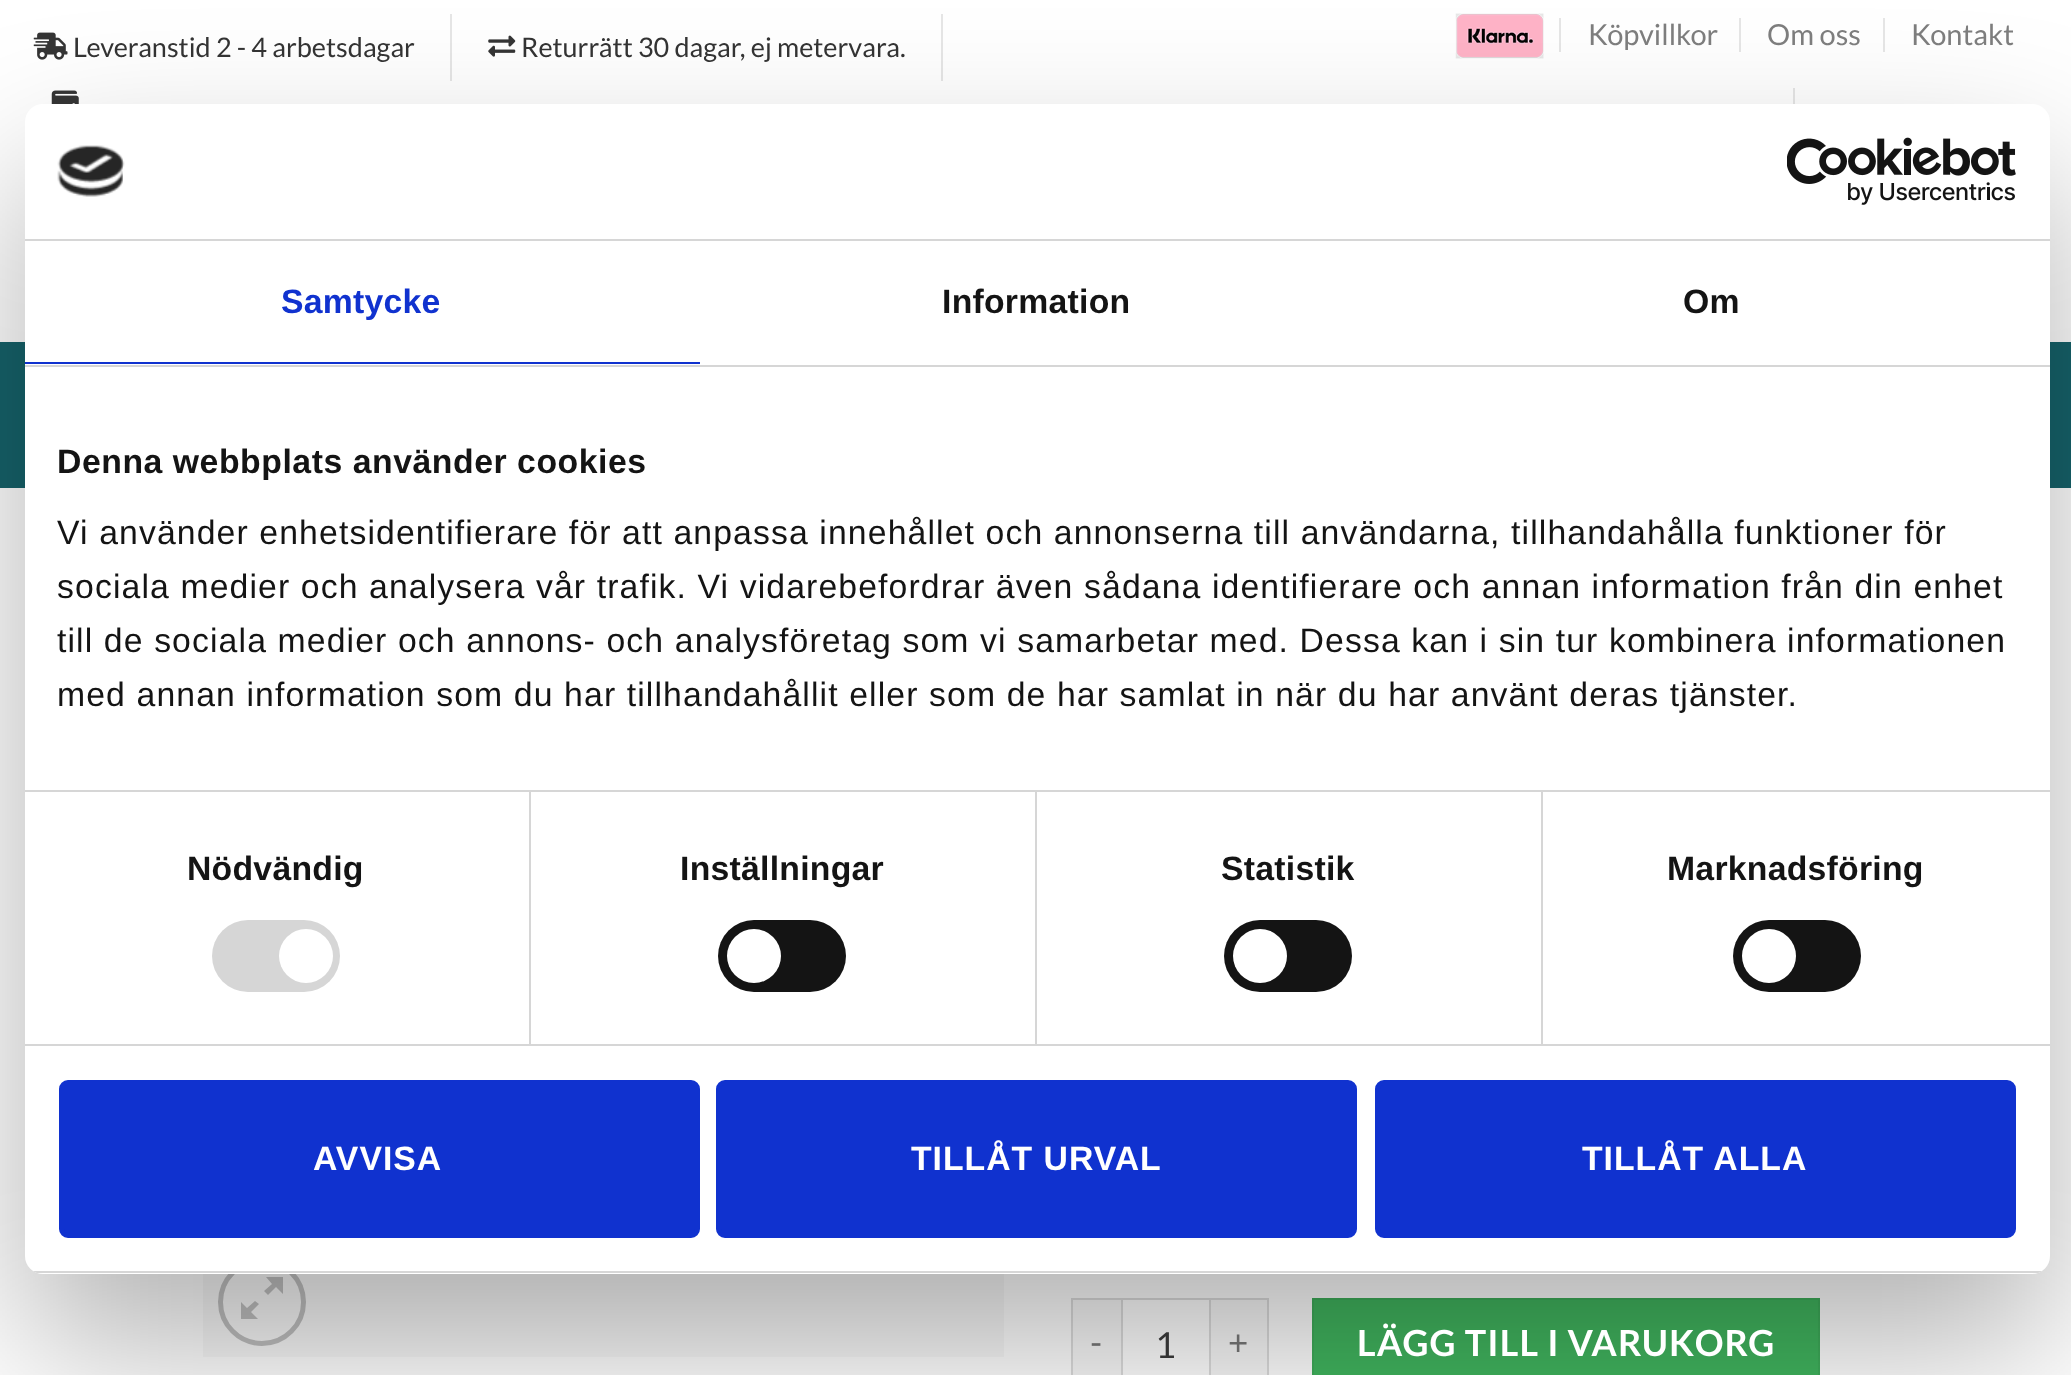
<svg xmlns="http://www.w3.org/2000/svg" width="2071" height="1375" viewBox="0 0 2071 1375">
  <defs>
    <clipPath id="clip1"><rect x="25" y="104" width="2025" height="1170" rx="18"/></clipPath>
  </defs>
  <rect width="100%" height="100%" fill="#fff"/>
  <image x="33" y="32" width="35" height="28" href="img/1.png"/>
  <path d="M450 14h2v67H450z" fill="#e6e6e6"/>
  <image x="488" y="35" width="28" height="22" href="img/2.png"/>
  <path d="M941 14h2v67H941z" fill="#e6e6e6"/>
  <image x="51" y="90" width="28" height="14" href="img/3.png"/>
  <image x="1455" y="13" width="89" height="46" href="img/4.png"/>
  <path d="M1559 18h2v34H1559z" fill="#e6e6e6"/>
  <path d="M1739 18h2v34H1739z" fill="#e6e6e6"/>
  <path d="M1883 18h2v34H1883z" fill="#e6e6e6"/>
  <path d="M1793 88h2v16H1793z" fill="#e6e6e6"/>
  <path d="M0 342h2071v146H0z" fill="#16636b"/>
  <path d="M203 1274h801v83H203z" fill="#f8f8f8"/>
  <circle cx="262" cy="1302" r="41.5" fill="none" stroke="#c0c0c0" stroke-width="5"/>
  <path d="M283 1277V1294L276 1287L268 1295L264 1291L272 1284L266 1277ZM259 1304L251 1312L258 1319H241V1302L247 1308L255 1301Z" fill="#c0c0c0"/>
  <path d="M1073 1300h48v75H1073z" fill="#f9f9f9"/>
  <path d="M1071 1298h50v2H1071z" fill="#ddd"/>
  <path d="M1071 1298h2v77H1071z" fill="#ddd"/>
  <path d="M1122 1299h88v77H1122z" fill="none" stroke="#ddd" stroke-width="2"/>
  <path d="M1211 1300h56v75H1211z" fill="#f9f9f9"/>
  <path d="M1211 1298h58v2H1211z" fill="#ddd"/>
  <path d="M1267 1298h2v77H1267z" fill="#ddd"/>
  <path d="M1313 1299h506v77H1313z" fill="#41b65f" stroke="#3ead5a" stroke-width="2"/>
  <rect x="25" y="176" width="2025" height="1170" rx="18" fill="#0000004d" filter="blur(76.5px)"/>
  <rect x="25" y="104" width="2025" height="1170" rx="18" fill="#fff"/>
  <path d="M25 239h2025v2H25z" fill="#d6d6d6"/>
  <image x="57" y="145" width="68" height="52" href="img/5.png"/>
  <image x="1787" y="137" width="229" height="68" href="img/6.png"/>
  <path d="M25 365h2025v2H25z" fill="#d6d6d6"/>
  <path d="M25 362h675v2H25z" fill="#1032cf"/>
  <path d="M25 790h2025v2H25z" fill="#d6d6d6"/>
  <path d="M25 1044h2025v2H25z" fill="#d6d6d6"/>
  <path d="M529 792h2v252H529z" fill="#d6d6d6"/>
  <rect x="212" y="920" width="128" height="72" rx="36" fill="#d6d6d6"/>
  <circle cx="306" cy="956" r="27" fill="#fff"/>
  <path d="M1035 792h2v252H1035z" fill="#d6d6d6"/>
  <rect x="718" y="920" width="128" height="72" rx="36" fill="#141414"/>
  <circle cx="754" cy="956" r="27" fill="#fff"/>
  <path d="M1541 792h2v252H1541z" fill="#d6d6d6"/>
  <rect x="1224" y="920" width="128" height="72" rx="36" fill="#141414"/>
  <circle cx="1260" cy="956" r="27" fill="#fff"/>
  <rect x="1733" y="920" width="128" height="72" rx="36" fill="#141414"/>
  <circle cx="1769" cy="956" r="27" fill="#fff"/>
  <g clip-path="url(#clip1)">
    <path d="M25 1271h2025v2H25z" fill="#d6d6d6"/>
  </g>
  <rect x="61.5" y="1082.5" width="636" height="153" rx="6.5" fill="#1032cf" stroke="#1032cf" stroke-width="5"/>
  <rect x="718.5" y="1082.5" width="636" height="153" rx="6.5" fill="#1032cf" stroke="#1032cf" stroke-width="5"/>
  <rect x="1377.5" y="1082.5" width="636" height="153" rx="6.5" fill="#1032cf" stroke="#1032cf" stroke-width="5"/>
  <g font-family="Lato" font-size="27" fill="#333">
    <text x="73" y="57">Leveranstid 2 - 4 arbetsdagar</text>
    <text x="521" y="57">Returrätt 30 dagar, ej metervara.</text>
  </g>
  <g font-family="Lato" font-size="29" fill="#7d7d7d">
    <text x="1588" y="45">Köpvillkor</text>
    <text x="1767" y="45">Om oss</text>
    <text x="1911" y="45">Kontakt</text>
  </g>
  <text x="1090" y="1355" font-family="Lato" font-size="35" letter-spacing="1" fill="#666">-</text>
  <text x="1155" y="1358" font-family="Lato" font-size="36" fill="#333">1</text>
  <text x="1228" y="1355" font-family="Lato" font-size="35" letter-spacing="1" fill="#666">+</text>
  <text x="1357" y="1356" font-family="Lato" font-size="36" font-weight="bold" letter-spacing="1.1" fill="#fff">LÄGG TILL I VARUKORG</text>
  <text x="281" y="313" font-family="Liberation Sans" font-size="33.75" font-weight="bold" letter-spacing="0.25" fill="#1032cf">Samtycke</text>
  <g font-family="Liberation Sans" font-size="33.75" font-weight="bold" letter-spacing="0.25" fill="#141414">
    <text x="942" y="313">Information</text>
    <text x="1683" y="313">Om</text>
  </g>
  <text x="57" y="473" font-family="Liberation Sans" font-size="33.75" font-weight="bold" letter-spacing="0.55" fill="#141414">Denna webbplats använder cookies</text>
  <g font-family="Liberation Sans" font-size="33.75" letter-spacing="1.12" fill="#141414">
    <text x="57" y="544">Vi använder enhetsidentifierare för att anpassa innehållet och annonserna till användarna, tillhandahålla funktioner för</text>
    <text x="57" y="598">sociala medier och analysera vår trafik. Vi vidarebefordrar även sådana identifierare och annan information från din enhet</text>
    <text x="57" y="652">till de sociala medier och annons- och analysföretag som vi samarbetar med. Dessa kan i sin tur kombinera informationen</text>
    <text x="57" y="706">med annan information som du har tillhandahållit eller som de har samlat in när du har använt deras tjänster.</text>
  </g>
  <g font-family="Liberation Sans" font-size="33.75" font-weight="bold" letter-spacing="0.25" fill="#141414">
    <text x="187" y="880">Nödvändig</text>
    <text x="680" y="880">Inställningar</text>
    <text x="1221" y="880">Statistik</text>
    <text x="1667" y="880">Marknadsföring</text>
  </g>
  <g font-family="Liberation Sans" font-size="33.75" font-weight="bold" letter-spacing="1" fill="#fff">
    <text x="313" y="1170">AVVISA</text>
    <text x="911" y="1170">TILLÅT URVAL</text>
    <text x="1582" y="1170">TILLÅT ALLA</text>
  </g>
</svg>
